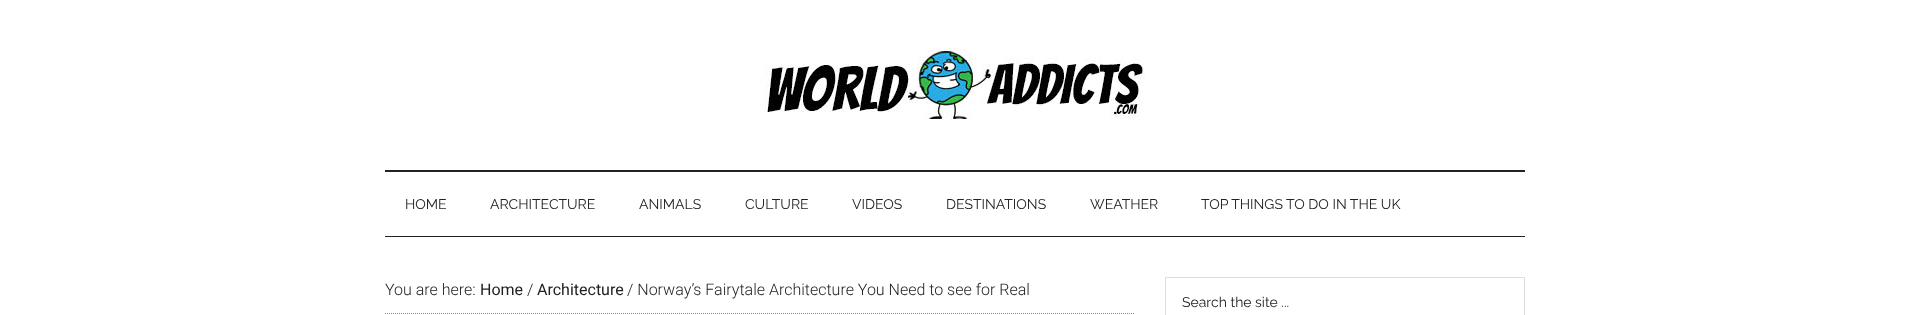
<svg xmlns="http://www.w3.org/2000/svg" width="1910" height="315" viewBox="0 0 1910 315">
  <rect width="100%" height="100%" fill="#fff"/>
  <path d="M385 170h1140v2H385z" fill="#222"/>
  <image x="765" y="48" width="380" height="72" href="img/1.png"/>
  <path d="M385 236h1140v1H385z" fill="#222"/>
  <path d="M385 313.5H1135" fill="none" stroke="#888" stroke-dasharray="1 1"/>
  <path d="M1165.5 277.5h359v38H1165.5z" fill="none" stroke="#ddd"/>
  <g font-family="Raleway" font-size="14" fill="#222">
    <text x="405" y="209">HOME</text>
    <text x="490" y="209">ARCHITECTURE</text>
    <text x="639" y="209">ANIMALS</text>
    <text x="745" y="209">CULTURE</text>
    <text x="852" y="209">VIDEOS</text>
    <text x="946" y="209">DESTINATIONS</text>
    <text x="1090" y="209">WEATHER</text>
    <text x="1201" y="209">TOP THINGS TO DO IN THE UK</text>
  </g>
  <text x="385" y="295" font-family="Roboto" font-size="16" font-weight="300" fill="#222">You are here:</text>
  <text x="480" y="295" font-family="Roboto" font-size="16" fill="#222">Home</text>
  <text x="527" y="295" font-family="Roboto" font-size="16" font-weight="300" fill="#222">/</text>
  <text x="537" y="295" font-family="Roboto" font-size="16" fill="#222">Architecture</text>
  <text x="627" y="295" font-family="Roboto" font-size="16" font-weight="300" fill="#222">/ Norway’s Fairytale Architecture You Need to see for Real</text>
  <text x="1182" y="307" font-family="Raleway" font-size="14" fill="#222">Search the site ...</text>
</svg>
